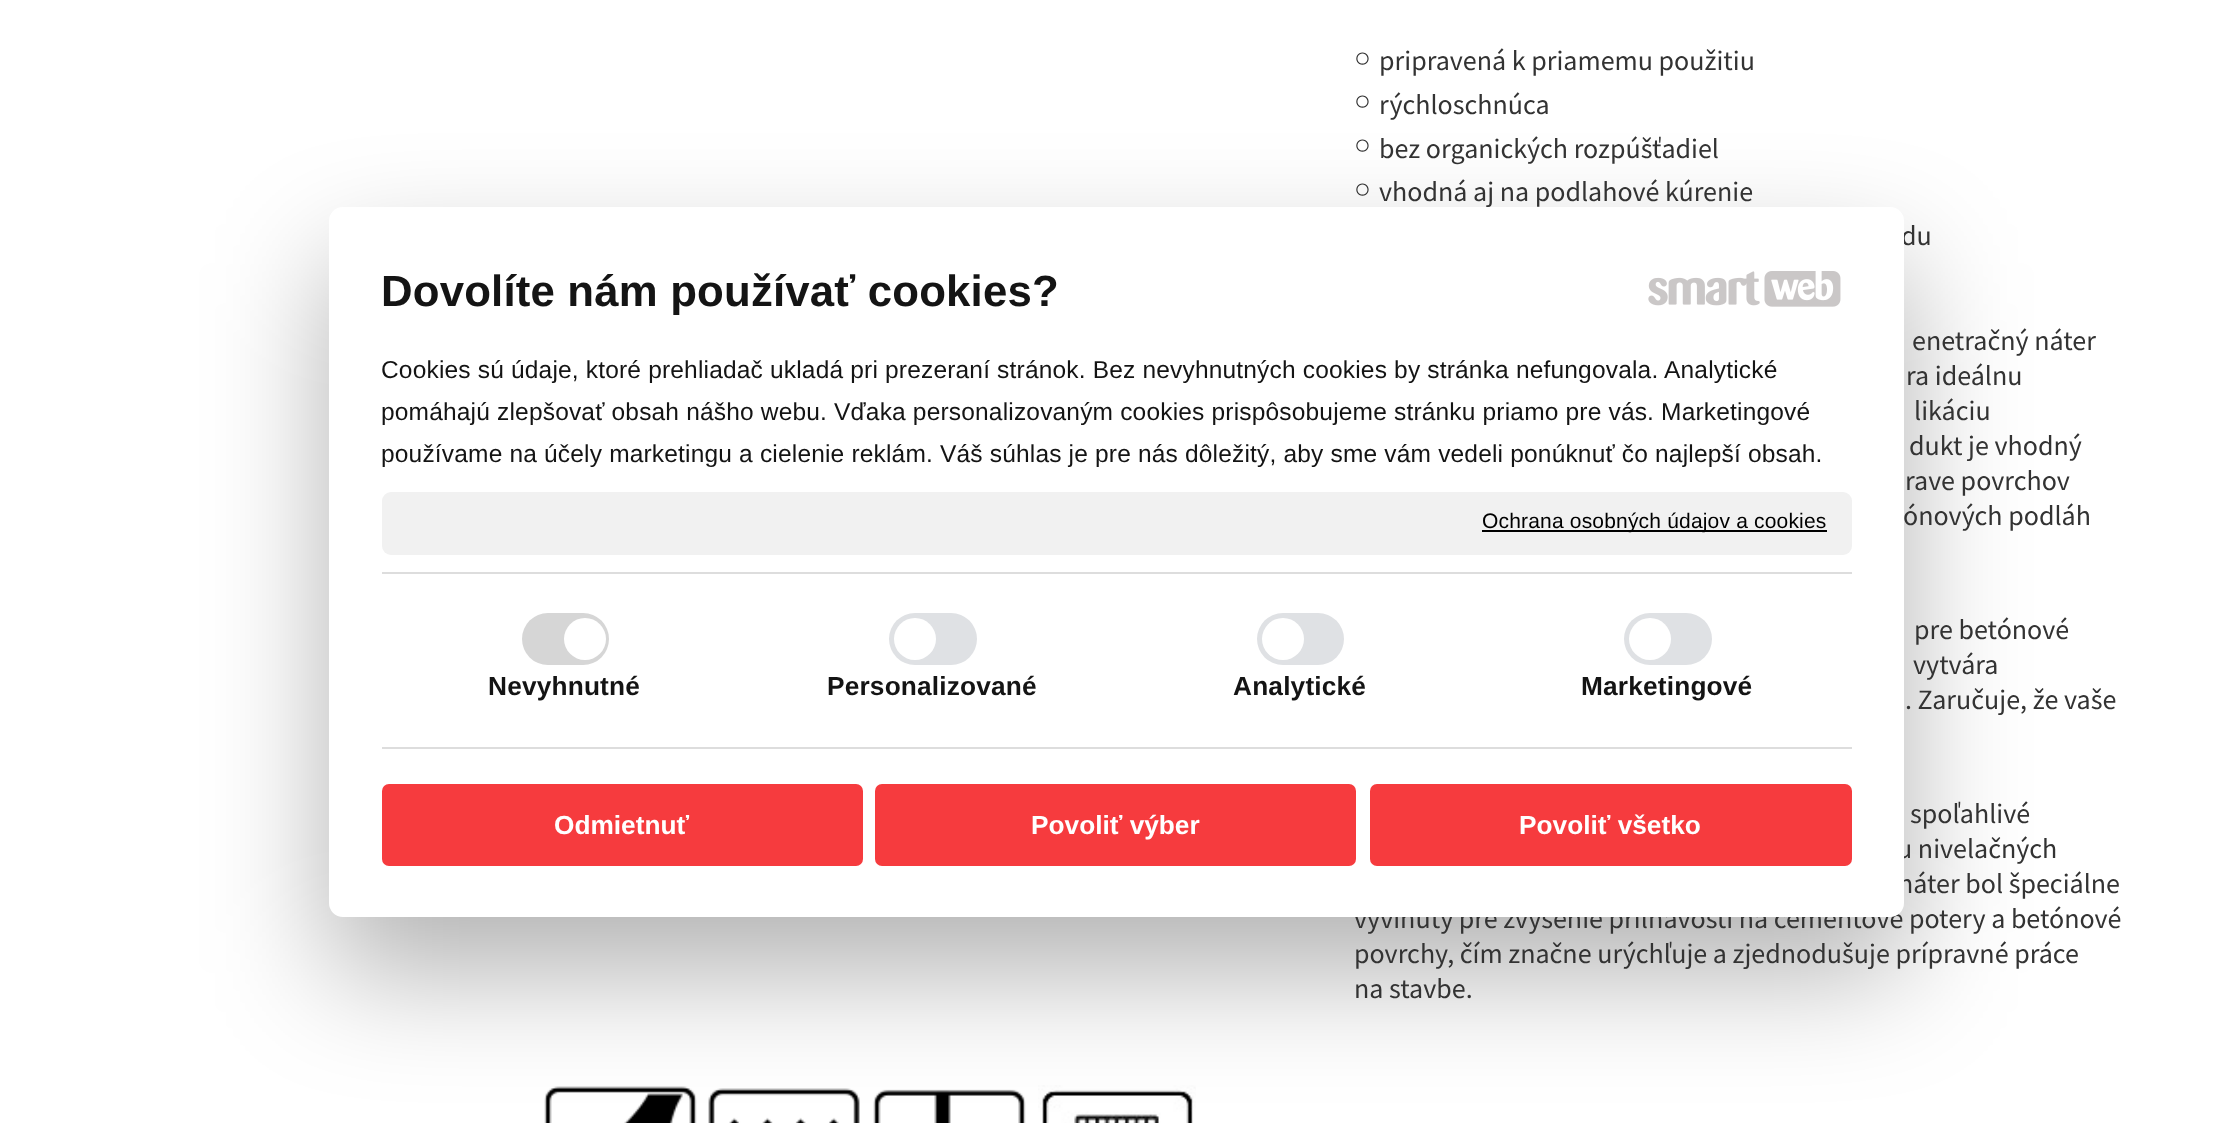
<svg xmlns="http://www.w3.org/2000/svg" width="2230" height="1123" viewBox="0 0 2230 1123">
  <rect width="100%" height="100%" fill="#fff"/>
  <image x="544" y="1086" width="153" height="37" href="img/1.png"/>
  <image x="708" y="1088" width="152" height="35" href="img/2.png"/>
  <image x="873" y="1089" width="153" height="34" href="img/3.png"/>
  <image x="1038" y="1085" width="158" height="38" href="img/4.png"/>
  <rect x="329" y="263" width="1575" height="710" rx="14" fill="#0000004d" filter="blur(59.5px)"/>
  <text x="1354" y="67" font-family="Liberation Sans" font-size="28" fill="#333">○</text>
  <text x="1379" y="70" font-family="Source Sans Pro" font-size="28" fill="#333">pripravená k priamemu použitiu</text>
  <text x="1354" y="110" font-family="Liberation Sans" font-size="28" fill="#333">○</text>
  <text x="1379" y="114" font-family="Source Sans Pro" font-size="28" fill="#333">rýchloschnúca</text>
  <text x="1354" y="154" font-family="Liberation Sans" font-size="28" fill="#333">○</text>
  <text x="1379" y="158" font-family="Source Sans Pro" font-size="28" fill="#333">bez organických rozpúšťadiel</text>
  <text x="1354" y="198" font-family="Liberation Sans" font-size="28" fill="#333">○</text>
  <g font-family="Source Sans Pro" font-size="28" fill="#333">
    <text x="1379" y="201">vhodná aj na podlahové kúrenie</text>
    <text x="1901" y="245">du</text>
    <text x="1912" y="350">enetračný náter</text>
    <text x="1906" y="385">ra ideálnu</text>
    <text x="1914" y="420">likáciu</text>
    <text x="1909" y="455">dukt je vhodný</text>
    <text x="1905" y="490">rave povrchov</text>
    <text x="1903" y="525">ónových podláh</text>
    <text x="1914" y="639">pre betónové</text>
    <text x="1913" y="674">vytvára</text>
    <text x="1905" y="709">. Zaručuje, že vaše</text>
    <text x="1910" y="823">spoľahlivé</text>
    <text x="1897" y="858">u nivelačných</text>
    <text x="1898" y="893">náter bol špeciálne</text>
    <text x="1354" y="928">vyvinutý pre zvýšenie priľnavosti na cementové potery a betónové</text>
    <text x="1354" y="963">povrchy, čím značne urýchľuje a zjednodušuje prípravné práce</text>
    <text x="1354" y="998">na stavbe.</text>
  </g>
  <rect x="329" y="207" width="1575" height="710" rx="14" fill="#fff"/>
  <text x="381" y="306" font-family="Liberation Sans" font-size="43.75" font-weight="bold" letter-spacing="0.18" fill="#141414">Dovolíte nám používať cookies?</text>
  <image x="1648" y="271" width="112" height="35" href="img/5.png"/>
  <image x="1764" y="271" width="77" height="36" href="img/6.png"/>
  <g font-family="Liberation Sans" font-size="24.5" letter-spacing="0.18" fill="#141414">
    <text x="381" y="378">Cookies sú údaje, ktoré prehliadač ukladá pri prezeraní stránok. Bez nevyhnutných cookies by stránka nefungovala. Analytické</text>
    <text x="381" y="420">pomáhajú zlepšovať obsah nášho webu. Vďaka personalizovaným cookies prispôsobujeme stránku priamo pre vás. Marketingové</text>
    <text x="381" y="462">používame na účely marketingu a cielenie reklám. Váš súhlas je pre nás dôležitý, aby sme vám vedeli ponúknuť čo najlepší obsah.</text>
  </g>
  <rect x="382" y="492" width="1470" height="63" rx="9" fill="#f1f1f1"/>
  <path d="M1482 530h345v2H1482z" fill="#000"/>
  <text x="1482" y="528" font-family="Liberation Sans" font-size="21" letter-spacing="0.18" fill="#000">Ochrana osobných údajov a cookies</text>
  <path d="M382 572h1470v2H382z" fill="#ddd"/>
  <path d="M382 747h1470v2H382z" fill="#ddd"/>
  <rect x="522" y="613" width="87" height="52" rx="26" fill="#d6d6d6"/>
  <circle cx="585" cy="639" r="21" fill="#fff"/>
  <text x="488" y="695" font-family="Liberation Sans" font-size="26.25" font-weight="bold" letter-spacing="0.18" fill="#141414">Nevyhnutné</text>
  <rect x="889" y="613" width="88" height="52" rx="26" fill="#dfe1e4"/>
  <circle cx="915" cy="639" r="21" fill="#fff"/>
  <text x="827" y="695" font-family="Liberation Sans" font-size="26.25" font-weight="bold" letter-spacing="0.18" fill="#141414">Personalizované</text>
  <rect x="1257" y="613" width="87" height="52" rx="26" fill="#dfe1e4"/>
  <circle cx="1283" cy="639" r="21" fill="#fff"/>
  <text x="1233" y="695" font-family="Liberation Sans" font-size="26.25" font-weight="bold" letter-spacing="0.18" fill="#141414">Analytické</text>
  <rect x="1624" y="613" width="88" height="52" rx="26" fill="#dfe1e4"/>
  <circle cx="1650" cy="639" r="21" fill="#fff"/>
  <text x="1581" y="695" font-family="Liberation Sans" font-size="26.25" font-weight="bold" letter-spacing="0.18" fill="#141414">Marketingové</text>
  <rect x="382" y="784" width="481" height="82" rx="7" fill="#f63b3e"/>
  <text x="554" y="834" font-family="Liberation Sans" font-size="26.25" font-weight="bold" fill="#fff">Odmietnuť</text>
  <rect x="875" y="784" width="481" height="82" rx="7" fill="#f63b3e"/>
  <text x="1031" y="834" font-family="Liberation Sans" font-size="26.25" font-weight="bold" fill="#fff">Povoliť výber</text>
  <rect x="1370" y="784" width="482" height="82" rx="7" fill="#f63b3e"/>
  <text x="1519" y="834" font-family="Liberation Sans" font-size="26.25" font-weight="bold" fill="#fff">Povoliť všetko</text>
</svg>
